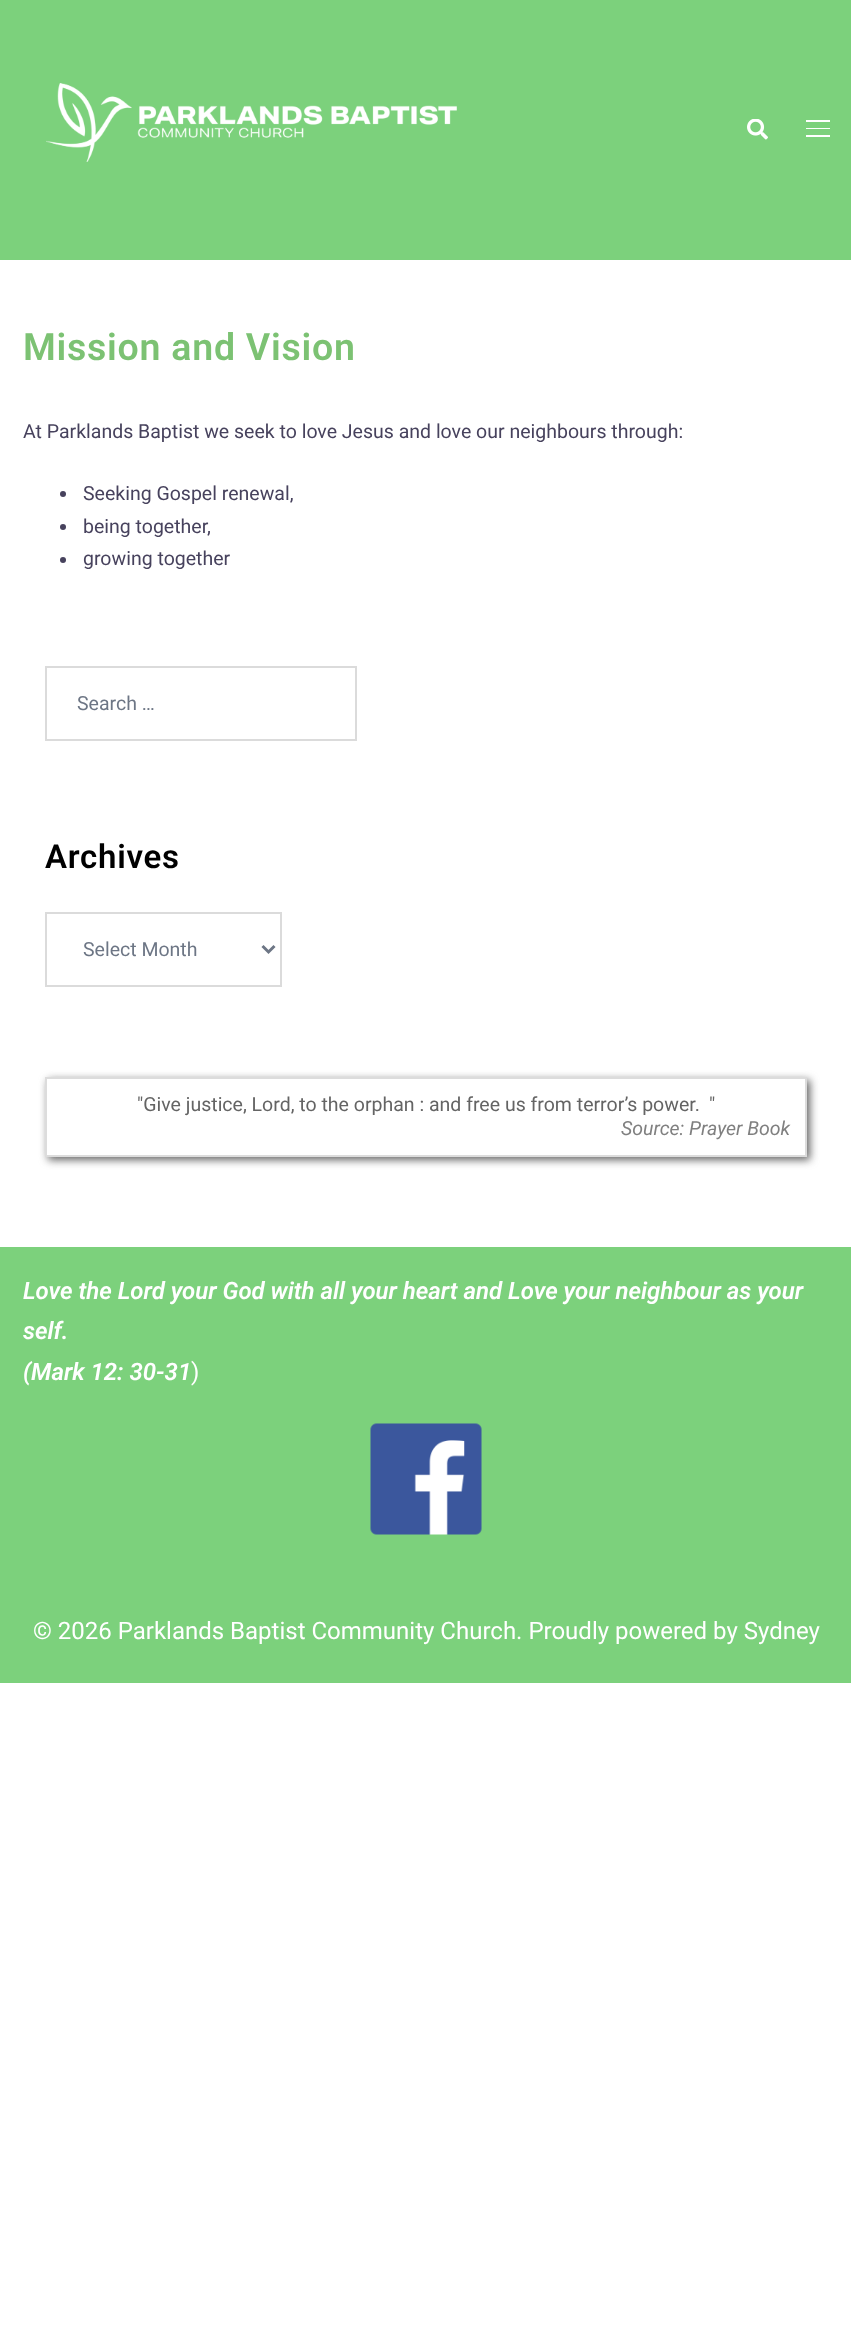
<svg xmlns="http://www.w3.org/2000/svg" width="851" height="2347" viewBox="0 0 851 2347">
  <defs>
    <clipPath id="clip1"><path d="M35 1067H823V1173H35ZM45 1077H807V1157H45Z" clip-rule="evenodd"/></clipPath>
  </defs>
  <rect width="100%" height="100%" fill="#fff"/>
  <path d="M0 0h851v260H0z" fill="#7cd17c"/>
  <image x="46" y="83" width="411" height="79" href="img/1.png"/>
  <image x="747" y="119" width="21" height="21" href="img/2.png"/>
  <path d="M806 120h24v2H806z" fill="#fff"/>
  <path d="M806 128h24v1H806z" fill="#fff"/>
  <path d="M806 135h24v2H806z" fill="#fff"/>
  <circle cx="63" cy="494" r="3" fill="#47425d"/>
  <circle cx="63" cy="527" r="3" fill="#47425d"/>
  <circle cx="63" cy="560" r="3" fill="#47425d"/>
  <path d="M46 667h310v73H46z" fill="none" stroke="#dbdbdb" stroke-width="2"/>
  <path d="M46 913h235v73H46z" fill="none" stroke="#dbdbdb" stroke-width="2"/>
  <path d="M262.5 946L268.5 952L274.5 946" fill="none" stroke="#6d7685" stroke-width="3"/>
  <g clip-path="url(#clip1)">
    <path d="M48 1080h762v80H48z" fill="#646464" filter="blur(4px)"/>
  </g>
  <path d="M46 1078h760v78H46z" fill="none" stroke="#dcdcdc" stroke-width="2"/>
  <path d="M0 1247h851v436H0z" fill="#7cd17c"/>
  <image x="370" y="1423" width="112" height="112" href="img/3.png"/>
  <text x="23" y="360" font-family="Roboto" font-size="37.5" font-weight="600" letter-spacing="0.75" fill="#7cc273">Mission and Vision</text>
  <g font-family="Roboto" font-size="19.5" fill="#47425d">
    <text x="23" y="438">At Parklands Baptist we seek to love Jesus and love our neighbours through:</text>
    <text x="83" y="500">Seeking Gospel renewal,</text>
    <text x="83" y="533">being together,</text>
    <text x="83" y="565">growing together</text>
  </g>
  <text x="77" y="710" font-family="Roboto" font-size="19.5" fill="#6d7685">Search …</text>
  <text x="45" y="868" font-family="Roboto" font-size="33" font-weight="600" letter-spacing="0.75" fill="#000">Archives</text>
  <text x="83" y="956" font-family="Roboto" font-size="19.5" fill="#6d7685">Select Month</text>
  <g font-family="Roboto" font-size="19.5" fill="#646464">
    <text x="137" y="1111">"Give justice, Lord, to the orphan : and free us from terror’s power.</text>
    <text x="709" y="1111">"</text>
  </g>
  <text x="621" y="1135" font-family="Roboto" font-size="19.5" font-style="italic" fill="#808080">Source: Prayer Book</text>
  <g font-family="Roboto" font-size="24" font-weight="600" font-style="italic" fill="#fff">
    <text x="23" y="1299">Love the Lord your God with all your heart and Love your neighbour as your</text>
    <text x="23" y="1339">self.</text>
    <text x="23" y="1380">(Mark 12: 30-31</text>
  </g>
  <g font-family="Roboto" font-size="24" fill="#fff">
    <text x="191" y="1380">)</text>
    <text x="33" y="1639">© 2026 Parklands Baptist Community Church. Proudly powered by Sydney</text>
  </g>
</svg>
